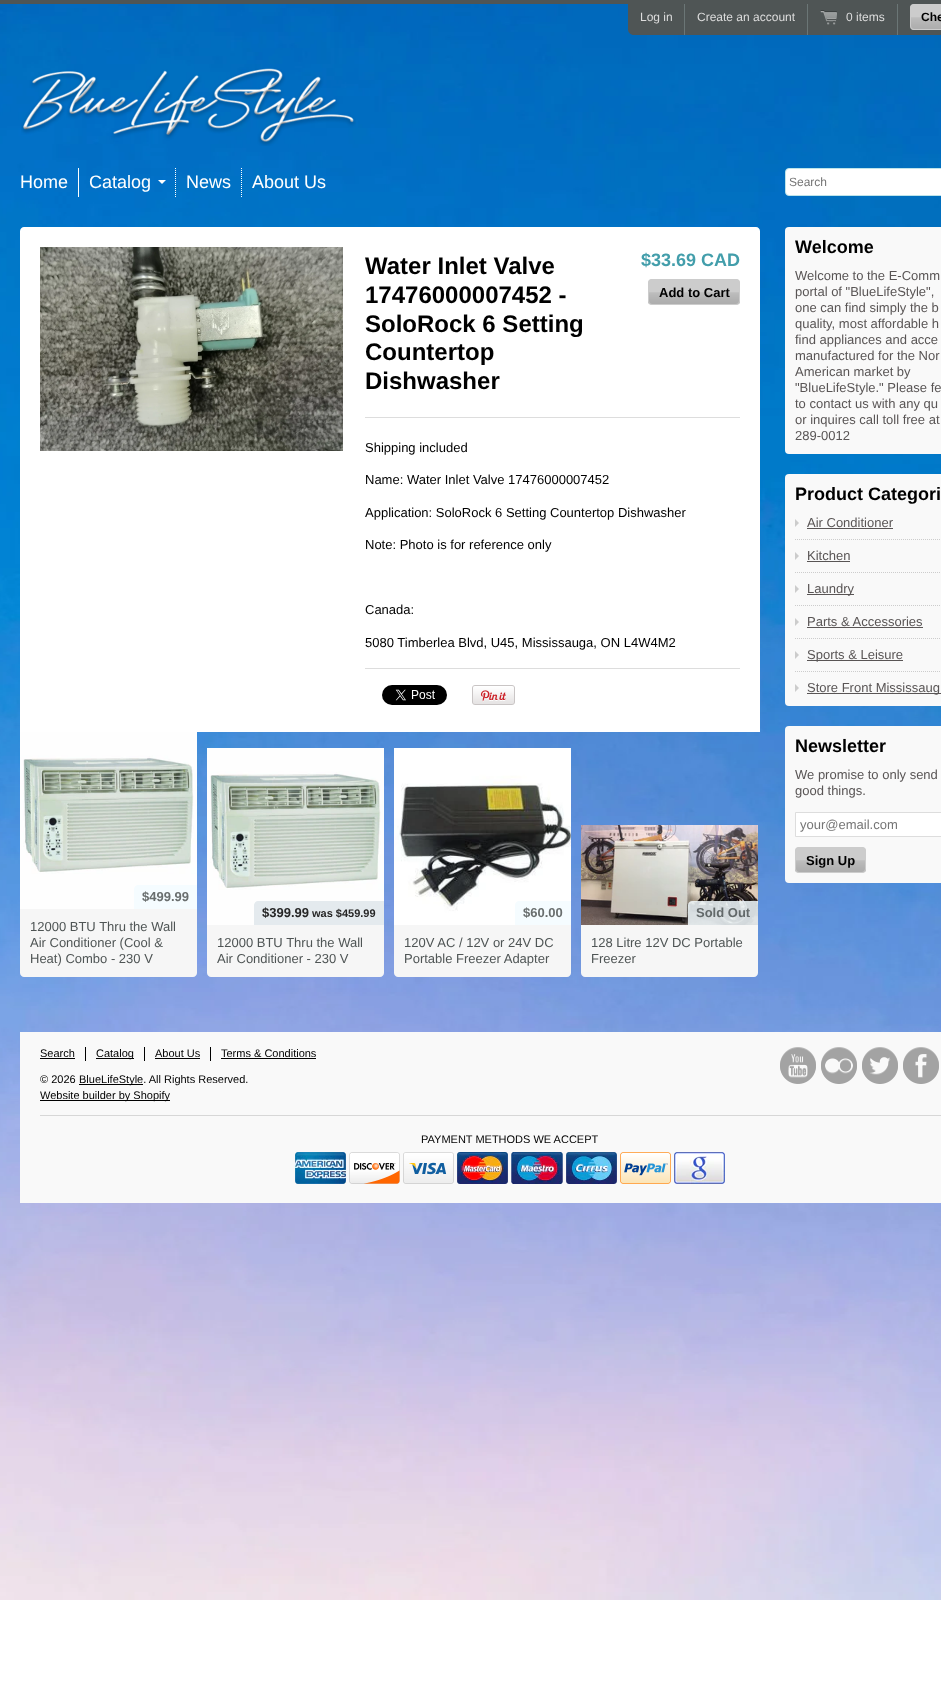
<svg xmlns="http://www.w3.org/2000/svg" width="941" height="1696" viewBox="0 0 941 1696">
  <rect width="100%" height="100%" fill="#fff"/>
  <image x="0" y="4" width="941" height="1596" href="img/1.png"/>
  <path d="M0 0h941v4H0z" fill="#4f5555"/>
  <path d="M628 4H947V29C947 32.5 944.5 35 941 35H634C630.5 35 628 32.5 628 29Z" fill="#4f5555"/>
  <path d="M684 4h1v31H684z" fill="#6b7676"/>
  <path d="M807 4h1v31H807z" fill="#6b7676"/>
  <path d="M897 4h1v31H897z" fill="#6b7676"/>
  <image x="820" y="10" width="17" height="15" href="img/2.png"/>
  <rect x="910" y="4" width="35" height="26" rx="4" fill="#ccc"/>
  <image x="910" y="17" width="31" height="12" href="img/3.png"/>
  <rect x="910.5" y="4.5" width="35" height="25" rx="3.5" fill="none" stroke="#ccc"/>
  <image x="21" y="68" width="335" height="78" href="img/4.png"/>
  <path d="M78 168h1v29H78z" fill="#fcffff"/>
  <path d="M175.5 168V197" fill="none" stroke="#fcffff" stroke-dasharray="1 1"/>
  <path d="M158 180H166L162 184Z" fill="#fff"/>
  <path d="M241.5 168V197" fill="none" stroke="#fcffff" stroke-dasharray="1 1"/>
  <rect x="785.5" y="168.5" width="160" height="27" rx="3.5" fill="#fff" stroke="#bde4ea"/>
  <path d="M24 227H756C758 227 760 229 760 231V732H20V231C20 229 22 227 24 227Z" fill="#fff"/>
  <image x="40" y="247" width="303" height="204" href="img/5.png"/>
  <path d="M365 417h375v1H365z" fill="#ddd"/>
  <rect x="648" y="279" width="92" height="26" rx="4" fill="#ccc"/>
  <image x="648" y="292" width="92" height="12" href="img/6.png"/>
  <rect x="648.5" y="279.5" width="91" height="25" rx="3.5" fill="none" stroke="#ccc"/>
  <path d="M365 668h375v1H365z" fill="#ddd"/>
  <image x="382" y="685" width="65" height="20" href="img/7.png"/>
  <image x="472" y="685" width="43" height="20" href="img/8.png"/>
  <image x="20" y="732" width="177" height="177" href="img/9.png"/>
  <path d="M138 885H197V909H134V889C134 887 136 885 138 885Z" fill="#f5fcff"/>
  <path d="M20 909H197V973C197 975 195 977 193 977H24C22 977 20 975 20 973Z" fill="#f6f6f6"/>
  <image x="207" y="748" width="177" height="177" href="img/10.png"/>
  <path d="M258 901H384V925H254V905C254 903 256 901 258 901Z" fill="#e4eaee"/>
  <path d="M207 925H384V973C384 975 382 977 380 977H211C209 977 207 975 207 973Z" fill="#f6f6f6"/>
  <image x="394" y="748" width="177" height="177" href="img/11.png"/>
  <path d="M519 901H571V925H515V905C515 903 517 901 519 901Z" fill="#f5fcff"/>
  <path d="M394 925H571V973C571 975 569 977 567 977H398C396 977 394 975 394 973Z" fill="#f6f6f6"/>
  <image x="581" y="825" width="177" height="100" href="img/12.png"/>
  <path d="M692 901H758V925H688V905C688 903 690 901 692 901Z" fill="#f3fcffd9"/>
  <path d="M581 925H758V973C758 975 756 977 754 977H585C583 977 581 975 581 973Z" fill="#f6f6f6"/>
  <rect x="785" y="227" width="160" height="227" rx="4" fill="#f9f9f9"/>
  <rect x="785" y="474" width="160" height="232" rx="4" fill="#f9f9f9"/>
  <path d="M795 539.5H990" fill="none" stroke="#ccc" stroke-dasharray="1 1"/>
  <path d="M795 527V519L799 523ZM795 560V552L799 556Z" fill="#ccc"/>
  <path d="M807 528h86v1H807z" fill="#595555"/>
  <path d="M807 561h43v1H807z" fill="#595555"/>
  <path d="M795 572.5H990" fill="none" stroke="#ccc" stroke-dasharray="1 1"/>
  <path d="M795 605.5H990" fill="none" stroke="#ccc" stroke-dasharray="1 1"/>
  <path d="M795 593V585L799 589ZM795 626V618L799 622Z" fill="#ccc"/>
  <path d="M807 594h47v1H807z" fill="#595555"/>
  <path d="M807 627h116v1H807z" fill="#595555"/>
  <path d="M795 638.5H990" fill="none" stroke="#ccc" stroke-dasharray="1 1"/>
  <path d="M795 671.5H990" fill="none" stroke="#ccc" stroke-dasharray="1 1"/>
  <path d="M795 659V651L799 655ZM795 692V684L799 688Z" fill="#ccc"/>
  <path d="M807 660h96v1H807z" fill="#595555"/>
  <path d="M807 693h134v1H807z" fill="#595555"/>
  <rect x="785" y="726" width="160" height="157" rx="4" fill="#f9f9f9"/>
  <path d="M795.5 812.5h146v24H795.5z" fill="#fff" stroke="#ddd"/>
  <rect x="795" y="847" width="71" height="26" rx="4" fill="#ccc"/>
  <image x="795" y="860" width="71" height="12" href="img/13.png"/>
  <rect x="795.5" y="847.5" width="70" height="25" rx="3.5" fill="none" stroke="#ccc"/>
  <path d="M20 1032h921v171H20z" fill="#f9f9f9"/>
  <path d="M40 1058h35v1H40z" fill="#000"/>
  <path d="M85 1047h1v14H85z" fill="#000"/>
  <path d="M96 1058h38v1H96z" fill="#000"/>
  <path d="M144 1047h1v14H144z" fill="#000"/>
  <path d="M155 1058h45v1H155z" fill="#000"/>
  <path d="M210 1047h1v14H210z" fill="#000"/>
  <path d="M221 1058h95v1H221z" fill="#000"/>
  <path d="M79 1084h64v1H79z" fill="#000"/>
  <path d="M40 1100h130v1H40z" fill="#000"/>
  <image x="780" y="1047" width="36" height="37" href="img/14.png"/>
  <image x="821" y="1047" width="36" height="37" href="img/15.png"/>
  <image x="862" y="1047" width="36" height="37" href="img/16.png"/>
  <image x="903" y="1047" width="36" height="37" href="img/17.png"/>
  <path d="M40 1115h901v1H40z" fill="#d7d7d7"/>
  <image x="295" y="1152" width="51" height="32" href="img/18.png"/>
  <image x="349" y="1152" width="51" height="32" href="img/19.png"/>
  <image x="403" y="1152" width="51" height="32" href="img/20.png"/>
  <image x="457" y="1152" width="51" height="32" href="img/21.png"/>
  <image x="511" y="1152" width="52" height="32" href="img/22.png"/>
  <image x="566" y="1152" width="51" height="32" href="img/23.png"/>
  <image x="620" y="1152" width="51" height="32" href="img/24.png"/>
  <image x="674" y="1152" width="51" height="32" href="img/25.png"/>
  <g font-family="Liberation Sans" font-size="12" fill="#ddd">
    <text x="640" y="21">Log in</text>
    <text x="697" y="21">Create an account</text>
    <text x="846" y="21">0 items</text>
  </g>
  <text x="921" y="21" font-family="Liberation Sans" font-size="12" font-weight="bold" fill="#000">Che</text>
  <g font-family="Liberation Sans" font-size="18" fill="#fff">
    <text x="20" y="188">Home</text>
    <text x="89" y="188">Catalog</text>
    <text x="186" y="188">News</text>
    <text x="252" y="188">About Us</text>
  </g>
  <text x="789" y="186" font-family="Liberation Sans" font-size="12" fill="#757575">Search</text>
  <g font-family="Liberation Sans" font-size="24" font-weight="bold" fill="#000">
    <text x="365" y="274">Water Inlet Valve</text>
    <text x="365" y="303">17476000007452 -</text>
    <text x="365" y="332">SoloRock 6 Setting</text>
    <text x="365" y="360">Countertop</text>
    <text x="365" y="389">Dishwasher</text>
  </g>
  <text x="641" y="266" font-family="Liberation Sans" font-size="18" font-weight="bold" fill="#439eab">$33.69 CAD</text>
  <text x="659" y="297" font-family="Liberation Sans" font-size="13" font-weight="bold" fill="#000">Add to Cart</text>
  <g font-family="Liberation Sans" font-size="13" fill="#000">
    <text x="365" y="452">Shipping included</text>
    <text x="365" y="484">Name: Water Inlet Valve 17476000007452</text>
    <text x="365" y="517">Application: SoloRock 6 Setting Countertop Dishwasher</text>
    <text x="365" y="549">Note: Photo is for reference only</text>
    <text x="365" y="614">Canada:</text>
    <text x="365" y="647">5080 Timberlea Blvd, U45, Mississauga, ON L4W4M2</text>
  </g>
  <text x="142" y="901" font-family="Liberation Sans" font-size="13" font-weight="bold" fill="#696e6e">$499.99</text>
  <g font-family="Liberation Sans" font-size="13" fill="#4f5555">
    <text x="30" y="931">12000 BTU Thru the Wall</text>
    <text x="30" y="947">Air Conditioner (Cool &amp;</text>
    <text x="30" y="963">Heat) Combo - 230 V</text>
  </g>
  <text x="262" y="917" font-family="Liberation Sans" font-size="13" font-weight="bold" fill="#262626">$399.99</text>
  <text x="312" y="917" font-family="Liberation Sans" font-size="11" font-weight="bold" fill="#262626">was $459.99</text>
  <g font-family="Liberation Sans" font-size="13" fill="#4f5555">
    <text x="217" y="947">12000 BTU Thru the Wall</text>
    <text x="217" y="963">Air Conditioner - 230 V</text>
  </g>
  <text x="523" y="917" font-family="Liberation Sans" font-size="13" font-weight="bold" fill="#696e6e">$60.00</text>
  <g font-family="Liberation Sans" font-size="13" fill="#4f5555">
    <text x="404" y="947">120V AC / 12V or 24V DC</text>
    <text x="404" y="963">Portable Freezer Adapter</text>
  </g>
  <text x="696" y="917" font-family="Liberation Sans" font-size="13" font-weight="bold" fill="#63696a">Sold Out</text>
  <g font-family="Liberation Sans" font-size="13" fill="#4f5555">
    <text x="591" y="947">128 Litre 12V DC Portable</text>
    <text x="591" y="963">Freezer</text>
  </g>
  <text x="795" y="253" font-family="Liberation Sans" font-size="18" font-weight="bold" fill="#000">Welcome</text>
  <g font-family="Liberation Sans" font-size="13" fill="#595555">
    <text x="795" y="280">Welcome to the E-Comm</text>
    <text x="795" y="296">portal of "BlueLifeStyle",</text>
    <text x="795" y="312">one can find simply the b</text>
    <text x="795" y="328">quality, most affordable h</text>
    <text x="795" y="344">find appliances and acce</text>
    <text x="795" y="360">manufactured for the Nor</text>
    <text x="795" y="376">American market by</text>
    <text x="795" y="392">"BlueLifeStyle." Please fe</text>
    <text x="795" y="408">to contact us with any qu</text>
    <text x="795" y="424">or inquires call toll free at</text>
    <text x="795" y="440">289-0012</text>
  </g>
  <text x="795" y="500" font-family="Liberation Sans" font-size="18" font-weight="bold" fill="#000">Product Categori</text>
  <g font-family="Liberation Sans" font-size="13" fill="#595555">
    <text x="807" y="527">Air Conditioner</text>
    <text x="807" y="560">Kitchen</text>
    <text x="807" y="593">Laundry</text>
    <text x="807" y="626">Parts &amp; Accessories</text>
    <text x="807" y="659">Sports &amp; Leisure</text>
    <text x="807" y="692">Store Front Mississaug</text>
  </g>
  <text x="795" y="752" font-family="Liberation Sans" font-size="18" font-weight="bold" fill="#000">Newsletter</text>
  <g font-family="Liberation Sans" font-size="13" fill="#595555">
    <text x="795" y="779">We promise to only send</text>
    <text x="795" y="795">good things.</text>
  </g>
  <text x="800" y="829" font-family="Liberation Sans" font-size="13" fill="#757575">your@email.com</text>
  <text x="806" y="865" font-family="Liberation Sans" font-size="13" font-weight="bold" fill="#000">Sign Up</text>
  <g font-family="Liberation Sans" font-size="11" fill="#000">
    <text x="40" y="1057">Search</text>
    <text x="96" y="1057">Catalog</text>
    <text x="155" y="1057">About Us</text>
    <text x="221" y="1057">Terms &amp; Conditions</text>
    <text x="40" y="1083">© 2026</text>
    <text x="79" y="1083">BlueLifeStyle. All Rights Reserved.</text>
    <text x="40" y="1099">Website builder by Shopify</text>
    <text x="421" y="1143">PAYMENT METHODS WE ACCEPT</text>
  </g>
</svg>
